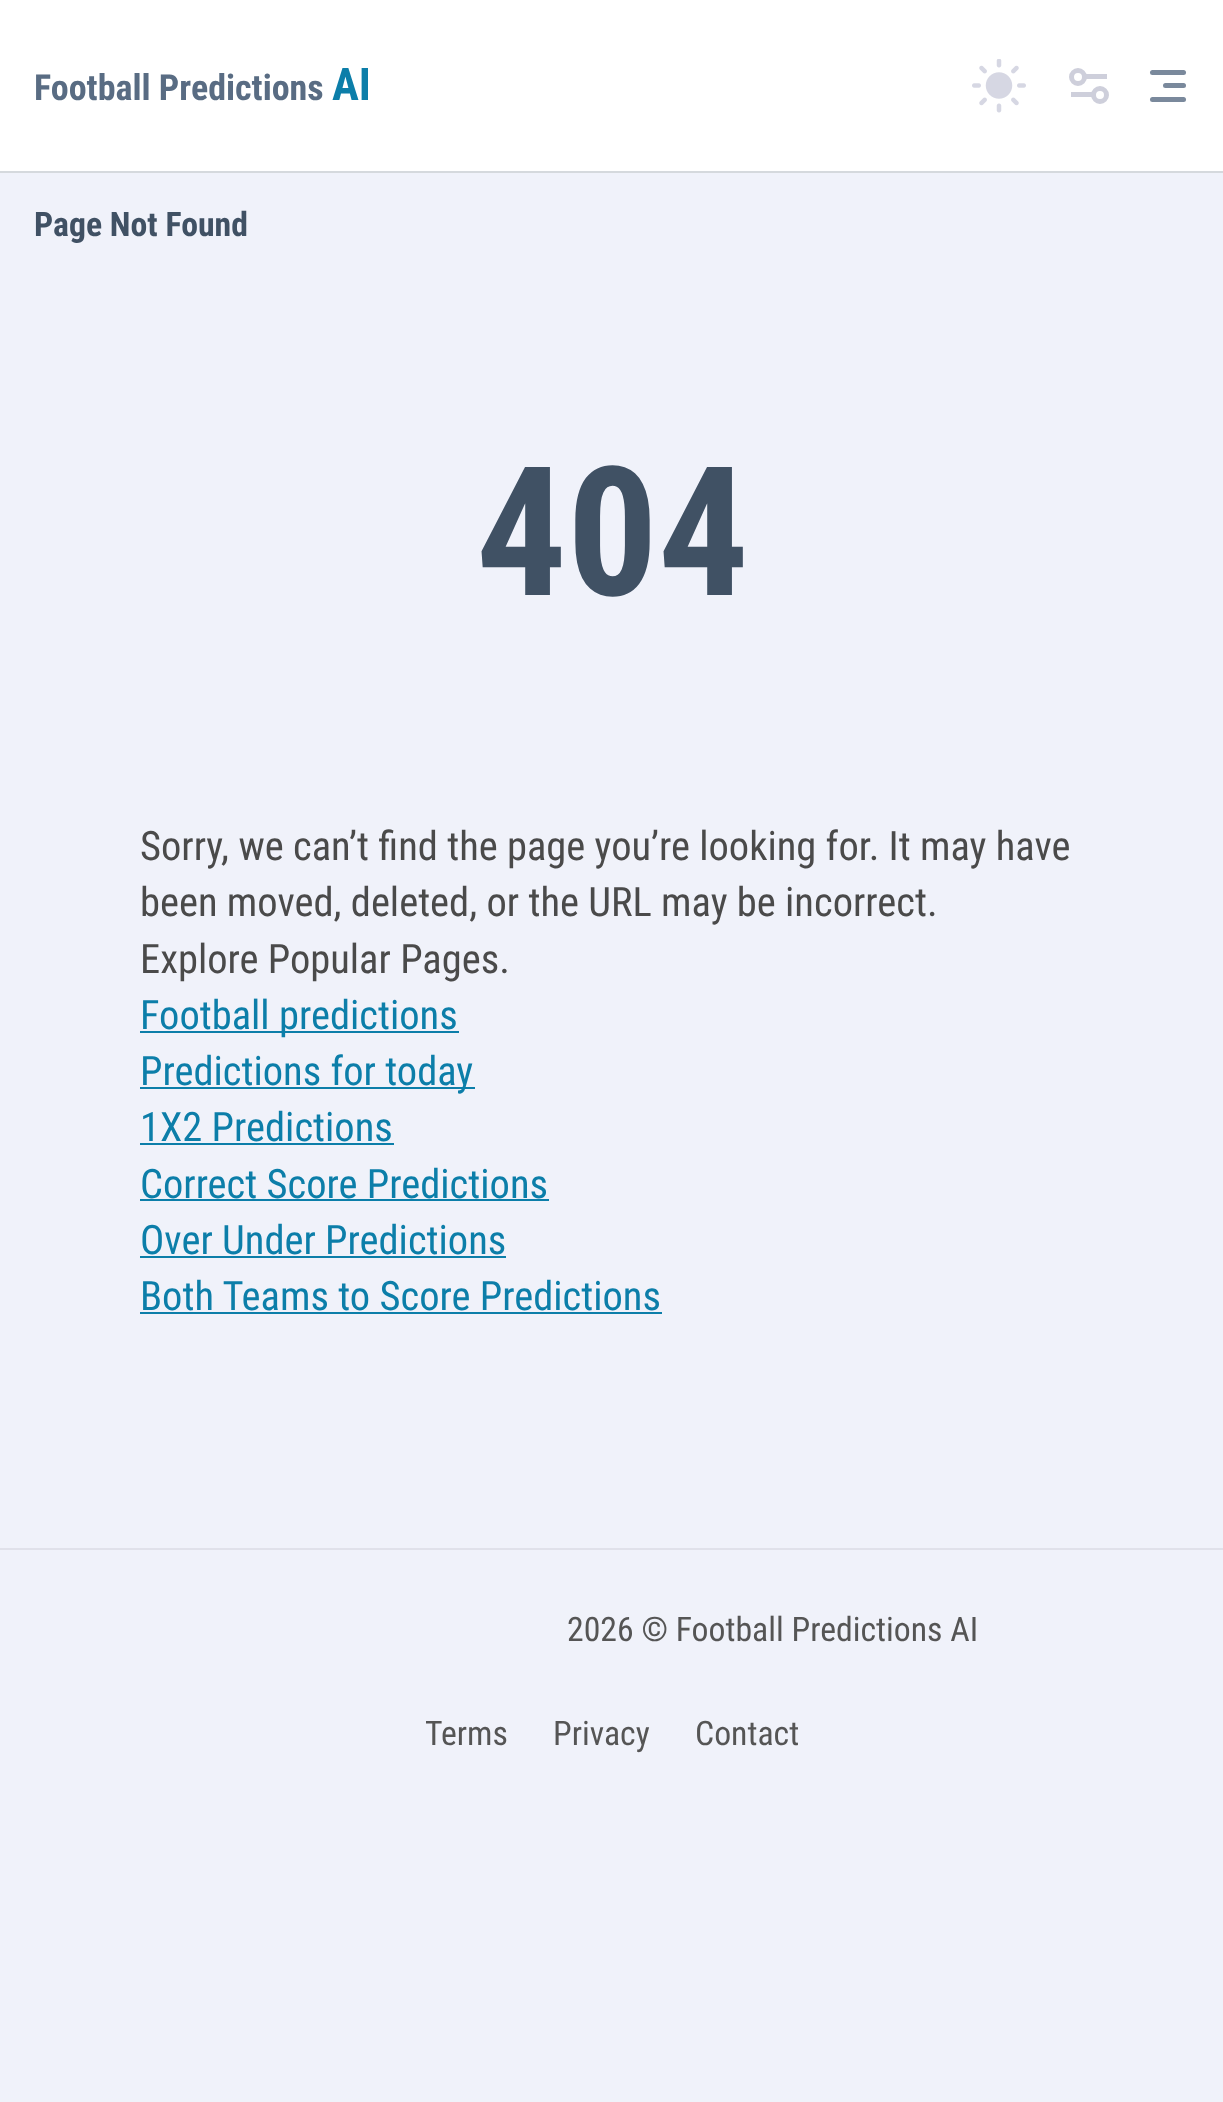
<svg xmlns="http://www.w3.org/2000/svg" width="1223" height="2102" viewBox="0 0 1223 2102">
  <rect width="100%" height="100%" fill="#f0f2fa"/>
  <path d="M0 171h1223v2H0z" fill="#d5d9dd"/>
  <path d="M0 0h1223v171H0z" fill="#fff"/>
  <image x="972" y="59" width="54" height="54" href="img/1.png"/>
  <path d="M1085 74h22v5H1085z" fill="#cecfdb"/>
  <path d="M1071 92h23v5H1071z" fill="#cecfdb"/>
  <circle cx="1078" cy="77" r="6.5" fill="none" stroke="#cecfdb" stroke-width="5"/>
  <circle cx="1100" cy="95" r="6.5" fill="none" stroke="#cecfdb" stroke-width="5"/>
  <rect x="1150" y="97" width="36" height="5" rx="2.5" fill="#7a899c"/>
  <rect x="1150" y="70" width="36" height="5" rx="2.5" fill="#7a899c"/>
  <rect x="1163" y="83" width="23" height="5" rx="2.5" fill="#7a899c"/>
  <path d="M140 1031h319v2H140z" fill="#0c7ea9"/>
  <path d="M140 1087h335v2H140z" fill="#0c7ea9"/>
  <path d="M140 1143h254v2H140z" fill="#0c7ea9"/>
  <path d="M140 1199h409v2H140z" fill="#0c7ea9"/>
  <path d="M140 1256h366v2H140z" fill="#0c7ea9"/>
  <path d="M140 1312h522v2H140z" fill="#0c7ea9"/>
  <path d="M0 1548h1223v2H0z" fill="#e0e1ea"/>
  <text x="34" y="100" font-family="Roboto Condensed" font-size="36" font-weight="bold" fill="#596c83">Football Predictions</text>
  <text x="332" y="100" font-family="Roboto Condensed" font-size="45" font-weight="bold" fill="#0c7ea9">AI</text>
  <text x="34" y="236" font-family="Roboto Condensed" font-size="33.75" font-weight="bold" fill="#405164">Page Not Found</text>
  <text x="476" y="595" font-family="Roboto Condensed" font-size="180" font-weight="bold" fill="#405164">404</text>
  <g font-family="Roboto Condensed" font-size="40.5" fill="#4a4a4a">
    <text x="140" y="860">Sorry, we can’t find the page you’re looking for. It may have</text>
    <text x="140" y="916">been moved, deleted, or the URL may be incorrect.</text>
    <text x="140" y="973">Explore Popular Pages.</text>
  </g>
  <g font-family="Roboto Condensed" font-size="40.5" fill="#0c7ea9">
    <text x="140" y="1029">Football predictions</text>
    <text x="140" y="1085">Predictions for today</text>
    <text x="140" y="1141">1X2 Predictions</text>
    <text x="140" y="1198">Correct Score Predictions</text>
    <text x="140" y="1254">Over Under Predictions</text>
    <text x="140" y="1310">Both Teams to Score Predictions</text>
  </g>
  <g font-family="Roboto Condensed" font-size="33.75" fill="#555">
    <text x="567" y="1641">2026 © Football Predictions AI</text>
    <text x="425" y="1745">Terms</text>
    <text x="553" y="1745">Privacy</text>
    <text x="695" y="1745">Contact</text>
  </g>
</svg>
